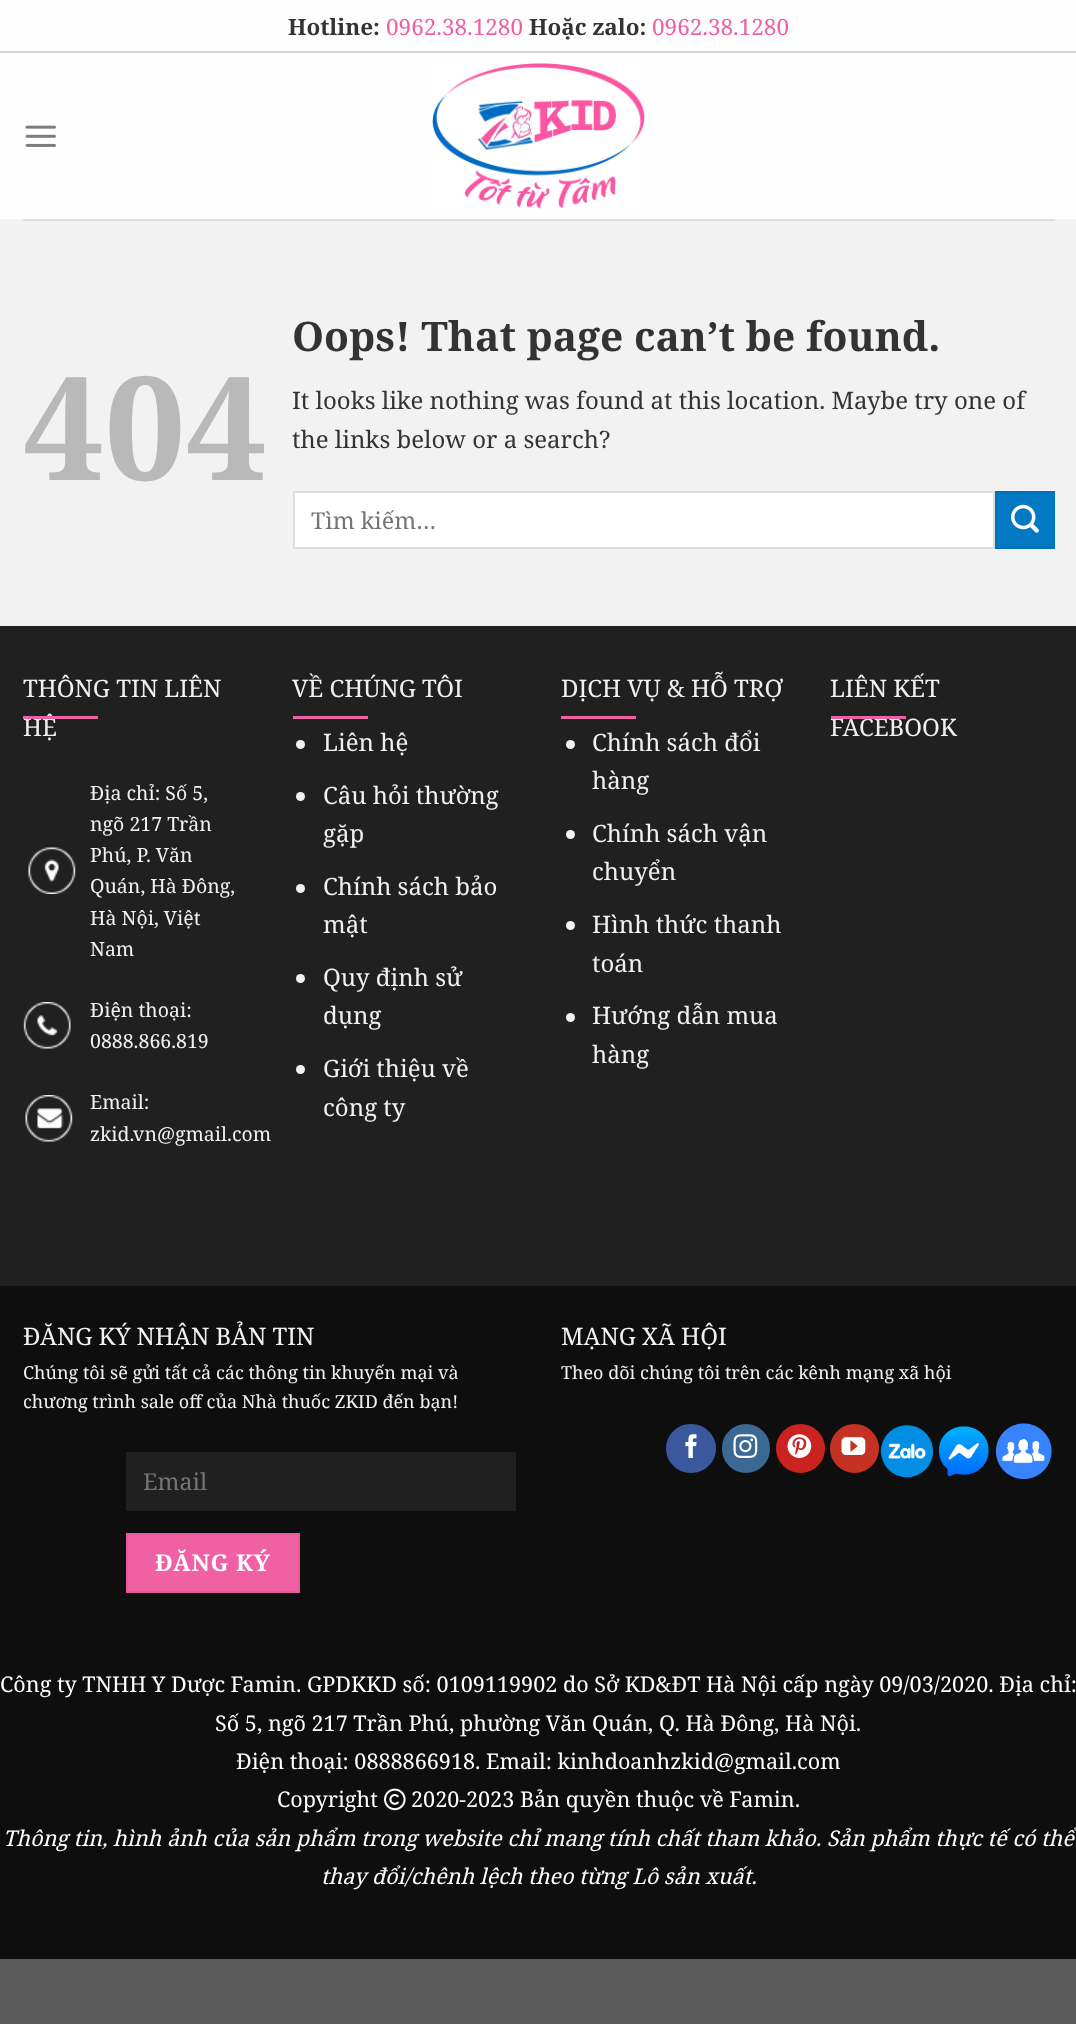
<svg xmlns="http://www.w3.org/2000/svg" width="1076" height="2024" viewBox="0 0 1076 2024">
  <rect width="100%" height="100%" fill="#5b5b5b"/>
  <path d="M0 219h1076v407H0z" fill="#f2f2f2"/>
  <path d="M0 0h1076v219H0z" fill="#fefefe"/>
  <path d="M0 51h1076v2H0z" fill="#d5d5d5"/>
  <image x="25" y="125" width="31" height="22" href="img/1.png"/>
  <image x="432" y="63" width="213" height="146" href="img/2.png"/>
  <path d="M23 219h1032v2H23z" fill="#dfdfdf"/>
  <path d="M294 492h700v56H294z" fill="#fff" stroke="#ddd" stroke-width="2"/>
  <path d="M996 492h58v56H996z" fill="#0379c3" stroke="#0373b9" stroke-width="2"/>
  <image x="1011" y="504" width="28" height="29" href="img/3.png"/>
  <path d="M0 626h1076v660H0z" fill="#202020"/>
  <image x="28" y="847" width="48" height="47" href="img/4.png"/>
  <image x="23" y="1002" width="48" height="47" href="img/5.png"/>
  <image x="25" y="1095" width="48" height="47" href="img/6.png"/>
  <path d="M293 716h75v3H293z" fill="#f061a3"/>
  <circle cx="300.5" cy="744.5" r="4.5" fill="#f1f1f1"/>
  <circle cx="300.5" cy="796.5" r="4.5" fill="#f1f1f1"/>
  <circle cx="300.5" cy="888.5" r="4.5" fill="#f1f1f1"/>
  <circle cx="300.5" cy="978.5" r="4.5" fill="#f1f1f1"/>
  <circle cx="300.5" cy="1069.5" r="4.5" fill="#f1f1f1"/>
  <path d="M561 716h75v3H561z" fill="#f061a3"/>
  <circle cx="570.5" cy="744.5" r="4.5" fill="#f1f1f1"/>
  <circle cx="570.5" cy="834.5" r="4.5" fill="#f1f1f1"/>
  <circle cx="570.5" cy="925.5" r="4.5" fill="#f1f1f1"/>
  <circle cx="570.5" cy="1017.5" r="4.5" fill="#f1f1f1"/>
  <path d="M0 1286h1076v673H0z" fill="#0e0e0e"/>
  <path d="M126 1452h390v59H126z" fill="#202020"/>
  <path d="M127 1534h172v58H127z" fill="#f061a3" stroke="#e45c9b" stroke-width="2"/>
  <rect x="667" y="1425" width="48" height="47" rx="23.5" fill="#3a589d" stroke="#3a589d" stroke-width="2"/>
  <image x="685" y="1434" width="12" height="24" href="img/7.png"/>
  <rect x="723" y="1425" width="46" height="47" rx="23" fill="#3b6994" stroke="#3b6994" stroke-width="2"/>
  <image x="733" y="1434" width="25" height="24" href="img/8.png"/>
  <circle cx="800.5" cy="1448.5" r="23.5" fill="#cb2320" stroke="#cb2320" stroke-width="2"/>
  <image x="787" y="1434" width="25" height="24" href="img/9.png"/>
  <circle cx="854.5" cy="1448.5" r="23.5" fill="#c33223" stroke="#c33223" stroke-width="2"/>
  <image x="841" y="1437" width="25" height="18" href="img/10.png"/>
  <image x="880" y="1425" width="53" height="53" href="img/11.png"/>
  <image x="939" y="1426" width="50" height="50" href="img/12.png"/>
  <image x="996" y="1423" width="56" height="56" href="img/13.png"/>
  <image x="384" y="1788" width="22" height="23" href="img/14.png"/>
  <text x="288" y="35" font-family="Noto Serif" font-size="22.5" font-weight="bold" fill="#333">Hotline:</text>
  <text x="386" y="35" font-family="Noto Serif" font-size="22.5" fill="#f061a3">0962.38.1280</text>
  <text x="529" y="35" font-family="Noto Serif" font-size="22.5" font-weight="bold" fill="#333">Hoặc zalo:</text>
  <text x="652" y="35" font-family="Noto Serif" font-size="22.5" fill="#f061a3">0962.38.1280</text>
  <text x="23" y="480" font-family="Noto Serif" font-size="144" font-weight="bold" fill="#b9b9b9">404</text>
  <text x="292" y="351" font-family="Noto Serif" font-size="40.75" font-weight="bold" fill="#333">Oops! That page can’t be found.</text>
  <g font-family="Noto Serif" font-size="24" fill="#333">
    <text x="292" y="409">It looks like nothing was found at this location. Maybe try one of</text>
    <text x="292" y="448">the links below or a search?</text>
  </g>
  <text x="311" y="529" font-family="Noto Serif" font-size="23.25" fill="#757575">Tìm kiếm…</text>
  <g font-family="Noto Serif" font-size="24" fill="#f1f1f1">
    <text x="23" y="697">THÔNG TIN LIÊN</text>
    <text x="23" y="736">HỆ</text>
  </g>
  <path d="M23 716h75v3H23z" fill="#f061a3"/>
  <g font-family="Noto Serif" font-size="19.5" fill="#f1f1f1">
    <text x="90" y="800">Địa chỉ: Số 5,</text>
    <text x="90" y="831">ngõ 217 Trần</text>
    <text x="90" y="862">Phú, P. Văn</text>
    <text x="90" y="893">Quán, Hà Đông,</text>
    <text x="90" y="925">Hà Nội, Việt</text>
    <text x="90" y="956">Nam</text>
    <text x="90" y="1017">Điện thoại:</text>
    <text x="90" y="1048">0888.866.819</text>
    <text x="90" y="1109">Email:</text>
    <text x="90" y="1141">zkid.vn@gmail.com</text>
  </g>
  <g font-family="Noto Serif" font-size="24" fill="#f1f1f1">
    <text x="292" y="697">VỀ CHÚNG TÔI</text>
    <text x="323" y="751">Liên hệ</text>
    <text x="323" y="804">Câu hỏi thường</text>
    <text x="323" y="842">gặp</text>
    <text x="323" y="895">Chính sách bảo</text>
    <text x="323" y="933">mật</text>
    <text x="323" y="986">Quy định sử</text>
    <text x="323" y="1024">dụng</text>
    <text x="323" y="1077">Giới thiệu về</text>
    <text x="323" y="1116">công ty</text>
    <text x="561" y="697">DỊCH VỤ &amp; HỖ TRỢ</text>
    <text x="592" y="751">Chính sách đổi</text>
    <text x="592" y="789">hàng</text>
    <text x="592" y="842">Chính sách vận</text>
    <text x="592" y="880">chuyển</text>
    <text x="592" y="933">Hình thức thanh</text>
    <text x="592" y="972">toán</text>
    <text x="592" y="1024">Hướng dẫn mua</text>
    <text x="592" y="1063">hàng</text>
    <text x="830" y="697">LIÊN KẾT</text>
    <text x="830" y="736">FACEBOOK</text>
  </g>
  <path d="M831 716h75v3H831z" fill="#f061a3"/>
  <text x="23" y="1345" font-family="Noto Serif" font-size="24" fill="#f1f1f1">ĐĂNG KÝ NHẬN BẢN TIN</text>
  <g font-family="Noto Serif" font-size="18" fill="#f1f1f1">
    <text x="23" y="1379">Chúng tôi sẽ gửi tất cả các thông tin khuyến mại và</text>
    <text x="23" y="1408">chương trình sale off của Nhà thuốc ZKID đến bạn!</text>
  </g>
  <text x="143" y="1490" font-family="Noto Serif" font-size="23.25" fill="#757575">Email</text>
  <text x="155" y="1571" font-family="Noto Serif" font-size="23.25" font-weight="bold" letter-spacing="0.75" fill="#fff">ĐĂNG KÝ</text>
  <text x="561" y="1345" font-family="Noto Serif" font-size="24" fill="#f1f1f1">MẠNG XÃ HỘI</text>
  <text x="561" y="1379" font-family="Noto Serif" font-size="18" fill="#f1f1f1">Theo dõi chúng tôi trên các kênh mạng xã hội</text>
  <g font-family="Noto Serif" font-size="21.6" fill="#fff">
    <text x="0" y="1692">Công ty TNHH Y Dược Famin. GPDKKD số: 0109119902 do Sở KD&amp;ĐT Hà Nội cấp ngày 09/03/2020. Địa chỉ:</text>
    <text x="215" y="1731">Số 5, ngõ 217 Trần Phú, phường Văn Quán, Q. Hà Đông, Hà Nội.</text>
    <text x="236" y="1769">Điện thoại: 0888866918. Email: kinhdoanhzkid@gmail.com</text>
    <text x="277" y="1807">Copyright</text>
    <text x="411" y="1807">2020-2023 Bản quyền thuộc về Famin.</text>
  </g>
  <g font-family="Noto Serif" font-size="21.6" font-style="italic" fill="#fff">
    <text x="3" y="1846">Thông tin, hình ảnh của sản phẩm trong website chỉ mang tính chất tham khảo. Sản phẩm thực tế có thể</text>
    <text x="321" y="1884">thay đổi/chênh lệch theo từng Lô sản xuất.</text>
  </g>
</svg>
